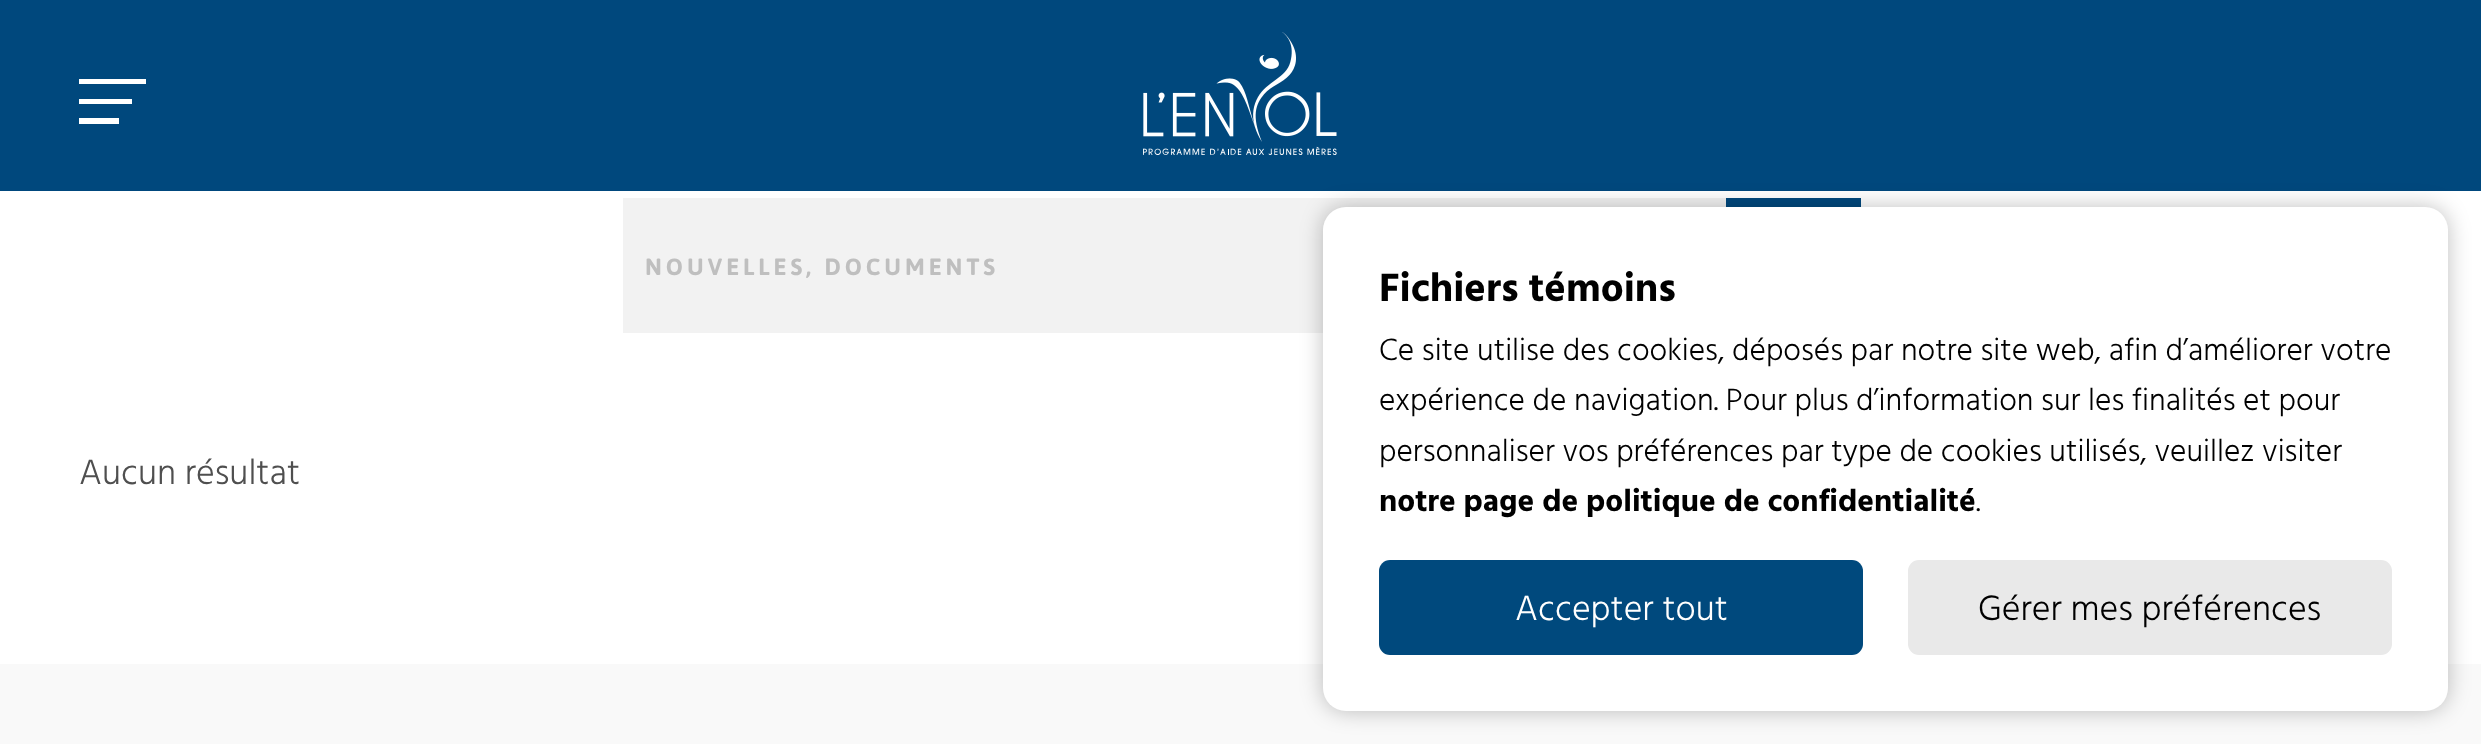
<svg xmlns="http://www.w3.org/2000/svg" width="2481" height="744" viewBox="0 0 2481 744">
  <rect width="100%" height="100%" fill="#fff"/>
  <path d="M0 0h2481v191H0z" fill="#00487d"/>
  <path d="M79 79h67v5H79z" fill="#fff"/>
  <path d="M79 99h53v5H79z" fill="#fff"/>
  <path d="M79 118h40v6H79z" fill="#fff"/>
  <image x="1143" y="32" width="194" height="123" href="img/1.png"/>
  <path d="M623 198h1103v135H623z" fill="#f2f2f2"/>
  <path d="M1726 198h135v9H1726z" fill="#00487d"/>
  <path d="M0 664h2481v80H0z" fill="#f9f9f9"/>
  <rect x="1323" y="207" width="1125" height="504" rx="23" fill="#00000040" filter="blur(11px)"/>
  <rect x="1323" y="207" width="1125" height="504" rx="23" fill="#fff"/>
  <rect x="1379" y="560" width="484" height="95" rx="11" fill="#00497d"/>
  <rect x="1908" y="560" width="484" height="95" rx="11" fill="#e9e9e9"/>
  <text x="645" y="275" font-family="Jaldi" font-size="27" font-weight="bold" letter-spacing="4" fill="#bfbfbf">NOUVELLES, DOCUMENTS</text>
  <text x="79" y="484" font-family="Hind Vadodara" font-size="36" font-weight="300" fill="#4f4f4f">Aucun résultat</text>
  <text x="1379" y="301" font-family="Hind Vadodara" font-size="40.5" font-weight="bold" fill="#000">Fichiers témoins</text>
  <g font-family="Hind Vadodara" font-size="31.5" font-weight="300" fill="#000">
    <text x="1379" y="360">Ce site utilise des cookies, déposés par notre site web, afin d’améliorer votre</text>
    <text x="1379" y="410">expérience de navigation. Pour plus d’information sur les finalités et pour</text>
    <text x="1379" y="461">personnaliser vos préférences par type de cookies utilisés, veuillez visiter</text>
  </g>
  <text x="1379" y="511" font-family="Hind Vadodara" font-size="31.5" font-weight="bold" fill="#000">notre page de politique de confidentialité</text>
  <text x="1976" y="511" font-family="Hind Vadodara" font-size="31.5" font-weight="300" fill="#000">.</text>
  <text x="1515" y="620" font-family="Hind Vadodara" font-size="36" font-weight="300" fill="#fff">Accepter tout</text>
  <text x="1978" y="620" font-family="Hind Vadodara" font-size="36" font-weight="300" fill="#000">Gérer mes préférences</text>
</svg>
